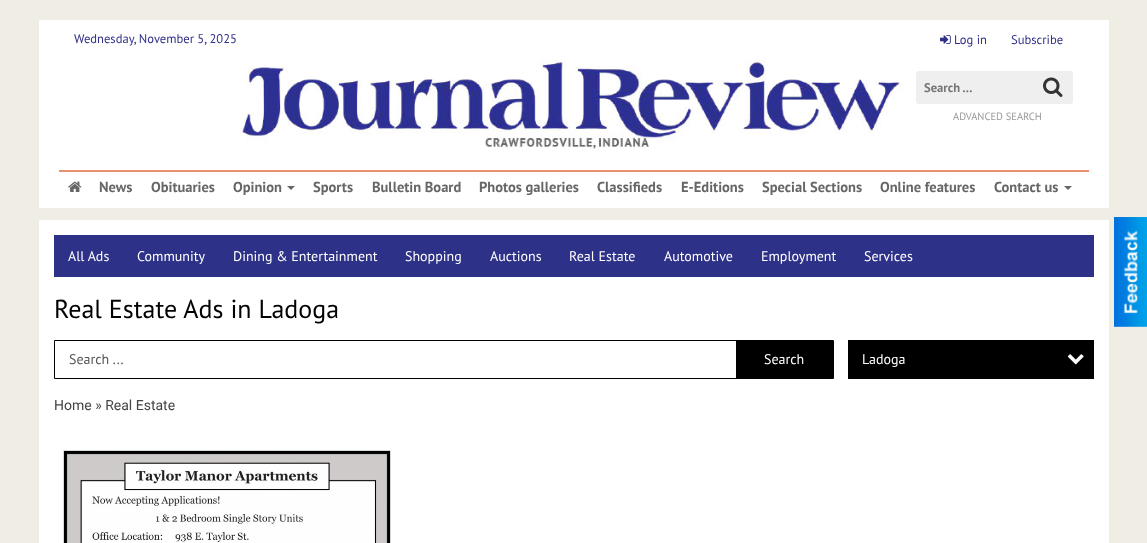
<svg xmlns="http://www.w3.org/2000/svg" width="1147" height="543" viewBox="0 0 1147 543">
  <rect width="100%" height="100%" fill="#efede4"/>
  <path d="M39 20h1070v523H39z" fill="#fff"/>
  <image x="940" y="35" width="11" height="9" href="img/1.png"/>
  <image x="240" y="59" width="662" height="90" href="img/2.png"/>
  <rect x="916" y="71" width="157" height="33" rx="3" fill="#efefef"/>
  <image x="1043" y="77" width="20" height="20" href="img/3.png"/>
  <path d="M39 208h1070v12H39z" fill="#efede4"/>
  <path d="M59 170h1030v2H59z" fill="#eb9070"/>
  <image x="68" y="181" width="14" height="11" href="img/4.png"/>
  <path d="M287 186H295L291 190Z" fill="#666"/>
  <path d="M1064 186H1072L1068 190Z" fill="#666"/>
  <path d="M54 235h1040v42H54z" fill="#2d3187"/>
  <path d="M54.5 340.5h779v38H54.5z" fill="none" stroke="#000"/>
  <path d="M736 341h97v37H736z" fill="#000"/>
  <path d="M848 340h246v39H848z" fill="#000"/>
  <image x="1067" y="354" width="17" height="11" href="img/5.png"/>
  <path d="M63.5 450.5h327v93H63.5z" fill="none" stroke="#d9d9d9"/>
  <image x="64" y="451" width="326" height="92" href="img/6.png"/>
  <image x="1114" y="217" width="33" height="110" href="img/7.png"/>
  <g font-family="PT Sans" font-size="12.6" fill="#30308a">
    <text x="74" y="43">Wednesday, November 5, 2025</text>
    <text x="954" y="44">Log in</text>
    <text x="1011" y="44">Subscribe</text>
  </g>
  <text x="924" y="92" font-family="PT Sans" font-size="12.6" font-weight="bold" fill="#757575">Search …</text>
  <text x="953" y="120" font-family="PT Sans" font-size="10.5" fill="#999">ADVANCED SEARCH</text>
  <g font-family="PT Sans" font-size="14.5" font-weight="bold" fill="#666">
    <text x="99" y="192">News</text>
    <text x="151" y="192">Obituaries</text>
    <text x="233" y="192">Opinion</text>
    <text x="313" y="192">Sports</text>
    <text x="372" y="192">Bulletin Board</text>
    <text x="479" y="192">Photos galleries</text>
    <text x="597" y="192">Classifieds</text>
    <text x="681" y="192">E-Editions</text>
    <text x="762" y="192">Special Sections</text>
    <text x="880" y="192">Online features</text>
    <text x="994" y="192">Contact us</text>
  </g>
  <g font-family="PT Sans" font-size="14" fill="#fff">
    <text x="68" y="261">All Ads</text>
    <text x="137" y="261">Community</text>
    <text x="233" y="261">Dining &amp; Entertainment</text>
    <text x="405" y="261">Shopping</text>
    <text x="490" y="261">Auctions</text>
    <text x="569" y="261">Real Estate</text>
    <text x="664" y="261">Automotive</text>
    <text x="761" y="261">Employment</text>
    <text x="864" y="261">Services</text>
  </g>
  <text x="54" y="318" font-family="PT Sans" font-size="26" fill="#000">Real Estate Ads in Ladoga</text>
  <text x="69" y="364" font-family="PT Sans" font-size="14" fill="#555">Search ...</text>
  <g font-family="PT Sans" font-size="14" fill="#fff">
    <text x="764" y="364">Search</text>
    <text x="862" y="364">Ladoga</text>
  </g>
  <text x="54" y="410" font-family="Roboto" font-size="14" fill="#444">Home » Real Estate</text>
</svg>
